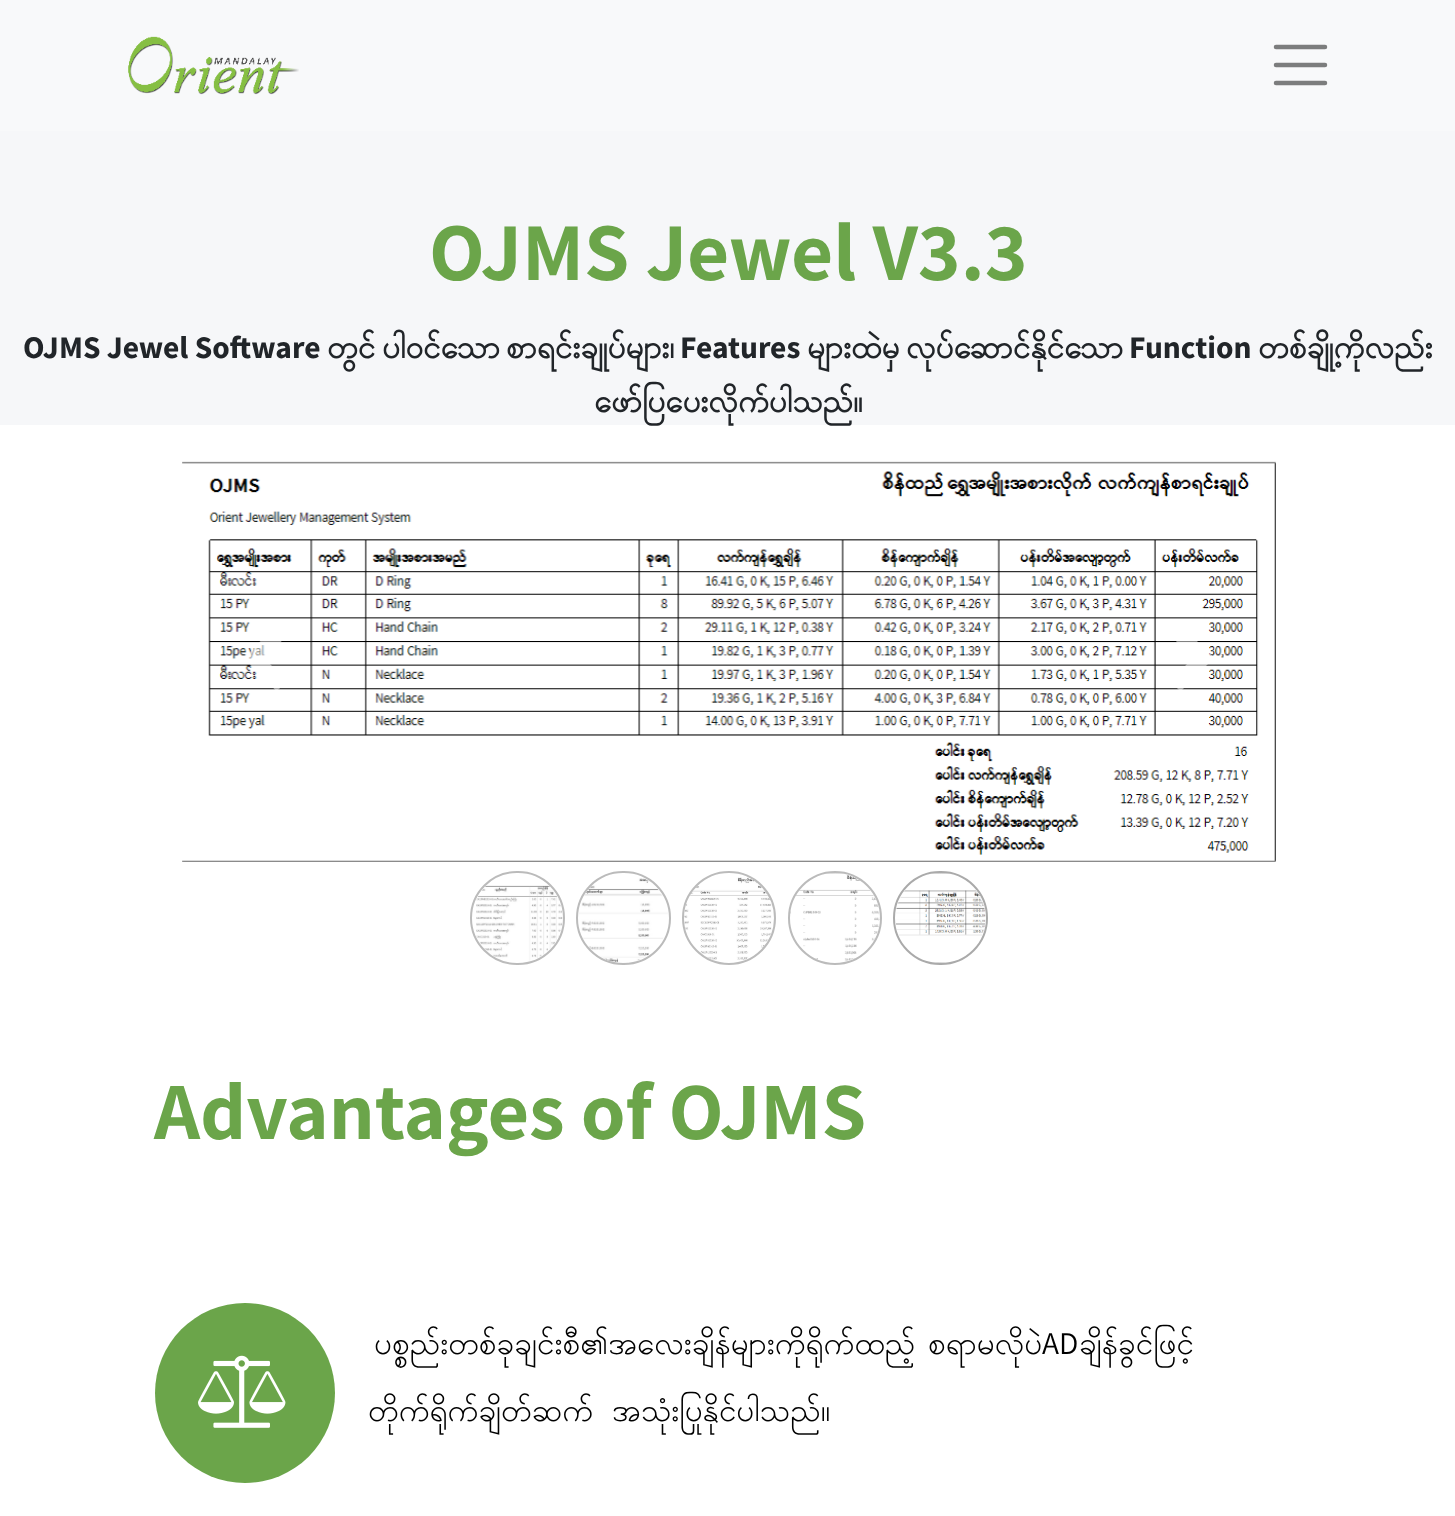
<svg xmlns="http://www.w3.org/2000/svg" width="1455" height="1516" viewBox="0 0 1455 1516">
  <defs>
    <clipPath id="clip1"><path d="M369 1303h934v151H369z"/></clipPath>
  </defs>
  <rect width="100%" height="100%" fill="#fff"/>
  <path d="M0 0h1455v131H0z" fill="#f8f9fa"/>
  <image x="128" y="36" width="171" height="59" href="img/1.png"/>
  <path d="M1276 47H1325M1276 65H1325M1276 83H1325" fill="none" stroke="#7c7d7d" stroke-width="4.5" stroke-linecap="round"/>
  <path d="M0 131h1455v294H0z" fill="#f6f7f9"/>
  <image x="182" y="461" width="1094" height="401" href="img/2.png"/>
  <path d="M286 637L264 658L282 676C288 682 287 681 281 687C276 693 276 690 270 685L245 659V657L275 626C277 624 280 627 281 629L286 634C287 635 286 636 286 637Z" fill="#ffffff80"/>
  <path d="M1212 660L1182 690C1180 692 1176 687 1174 685C1168 679 1173 679 1179 672L1193 658C1190 655 1171 637 1171 635C1171 633 1174 631 1175 630C1182 623 1181 625 1187 631L1207 651C1208 652 1214 656 1213 658Z" fill="#ffffff80"/>
  <image x="476" y="885" width="87" height="76" href="img/3.png"/>
  <rect x="471" y="872" width="93" height="92" rx="46" fill="none" stroke="#bbb" stroke-width="2"/>
  <image x="579" y="878" width="89" height="85" href="img/4.png"/>
  <rect x="577" y="872" width="93" height="92" rx="46" fill="none" stroke="#bbb" stroke-width="2"/>
  <image x="684" y="877" width="88" height="83" href="img/5.png"/>
  <circle cx="729" cy="918" r="46" fill="none" stroke="#bbb" stroke-width="2"/>
  <image x="790" y="873" width="90" height="88" href="img/6.png"/>
  <circle cx="835" cy="918" r="46" fill="none" stroke="#bbb" stroke-width="2"/>
  <image x="896" y="873" width="90" height="90" href="img/7.png"/>
  <rect x="894" y="872" width="93" height="92" rx="46" fill="none" stroke="#aaa" stroke-width="2"/>
  <circle cx="245" cy="1393" r="90" fill="#6ba54a"/>
  <image x="198" y="1355" width="88" height="73" href="img/8.png"/>
  <text x="429" y="280" font-family="Assistant" font-size="82" font-weight="bold" fill="#6ba54a">OJMS Jewel V3.3</text>
  <text x="23" y="358" font-family="Source Sans Pro" font-size="31.5" font-weight="bold" fill="#212529">OJMS Jewel Software</text>
  <g font-family="Padauk" font-size="31.5" font-weight="bold" fill="#212529">
    <text x="327" y="358">တွင်</text>
    <text x="382" y="358">ပါဝင်သော</text>
    <text x="506" y="358">စာရင်းချုပ်များ၊</text>
  </g>
  <text x="680" y="358" font-family="Source Sans Pro" font-size="31.5" font-weight="bold" fill="#212529">Features</text>
  <g font-family="Padauk" font-size="31.5" font-weight="bold" fill="#212529">
    <text x="807" y="358">များထဲမှ</text>
    <text x="906" y="358">လုပ်ဆောင်နိုင်သော</text>
  </g>
  <text x="1129" y="358" font-family="Source Sans Pro" font-size="31.5" font-weight="bold" fill="#212529">Function</text>
  <g font-family="Padauk" font-size="31.5" font-weight="bold" fill="#212529">
    <text x="1258" y="358">တစ်ချို့ကိုလည်း</text>
    <text x="594" y="412">ဖော်ပြပေးလိုက်ပါသည်။</text>
  </g>
  <text x="154" y="1139" font-family="Assistant" font-size="81" font-weight="bold" fill="#6ba54a">Advantages of OJMS</text>
  <g font-family="Padauk" font-size="31.5" fill="#000">
    <text x="374" y="1354">ပစ္စည်းတစ်ခုချင်းစီ၏အလေးချိန်များကိုရိုက်ထည့်</text>
    <text x="928" y="1354">စရာမလိုပဲ</text>
  </g>
  <text x="1042" y="1354" font-family="Assistant" font-size="31.5" fill="#000">AD</text>
  <text x="1079" y="1354" font-family="Padauk" font-size="31.5" fill="#000">ချိန်ခွင်ဖြင့်</text>
  <g clip-path="url(#clip1)">
    <text x="368" y="1421" font-family="Padauk" font-size="31.5" fill="#000">တိုက်ရိုက်ချိတ်ဆက်</text>
  </g>
  <text x="612" y="1421" font-family="Padauk" font-size="31.5" fill="#000">အသုံးပြုနိုင်ပါသည်။</text>
</svg>
